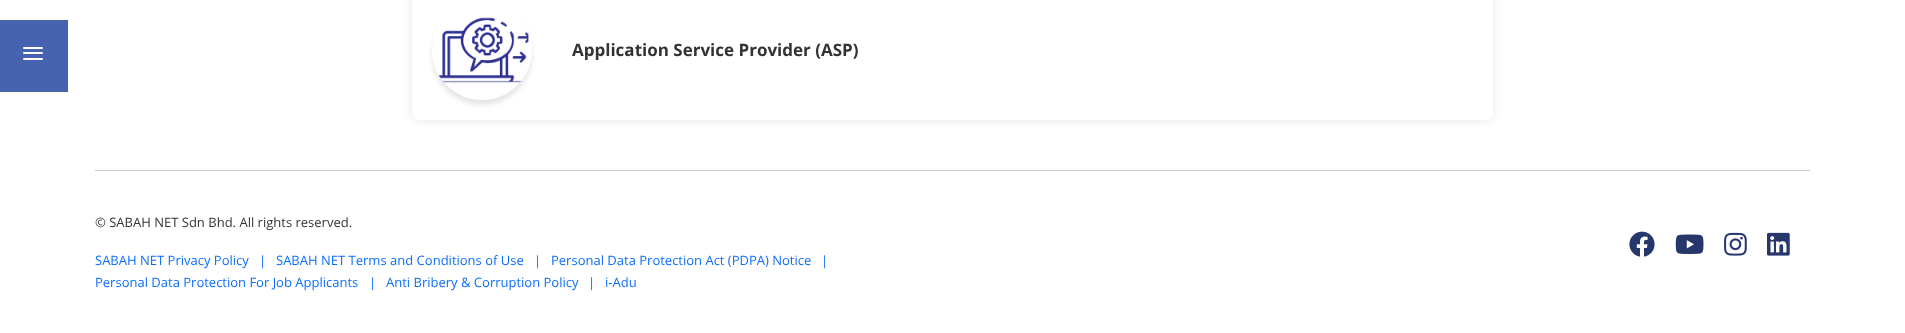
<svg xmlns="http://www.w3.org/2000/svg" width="1905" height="333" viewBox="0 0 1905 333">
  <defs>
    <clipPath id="clip1"><path d="M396 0H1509V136H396ZM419-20H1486C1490-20 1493-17 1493-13V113C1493 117 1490 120 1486 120H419C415 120 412 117 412 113V-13C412-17 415-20 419-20Z" clip-rule="evenodd"/></clipPath>
  </defs>
  <rect width="100%" height="100%" fill="#fff"/>
  <path d="M0 20h68v72H0z" fill="#4762af"/>
  <rect x="23" y="52" width="20" height="2" rx="1" fill="#fff"/>
  <rect x="23" y="47" width="20" height="2" rx="1" fill="#fff"/>
  <rect x="23" y="58" width="20" height="2" rx="1" fill="#fff"/>
  <g clip-path="url(#clip1)">
    <rect x="412" y="-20" width="1081" height="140" rx="7" fill="#0000001a" filter="blur(5px)"/>
  </g>
  <rect x="432" y="5" width="100" height="100" rx="50" fill="#0000001a" filter="blur(2.5px)"/>
  <circle cx="482" cy="50" r="50" fill="#fff"/>
  <image x="438" y="17" width="91" height="66" href="img/1.png"/>
  <path d="M95 170h1715v1H95z" fill="#ccc"/>
  <image x="1629" y="231" width="26" height="26" href="img/2.png"/>
  <image x="1675" y="234" width="29" height="20" href="img/3.png"/>
  <image x="1724" y="232" width="23" height="24" href="img/4.png"/>
  <image x="1767" y="232" width="23" height="24" href="img/5.png"/>
  <text x="572" y="56" font-family="Open Sans" font-size="17" font-weight="bold" fill="#333">Application Service Provider (ASP)</text>
  <text x="95" y="227" font-family="Open Sans" font-size="13" fill="#333">© SABAH NET Sdn Bhd. All rights reserved.</text>
  <g font-family="Open Sans" font-size="13" fill="#0d6efd">
    <text x="95" y="265">SABAH NET Privacy Policy</text>
    <text x="259" y="265">|</text>
    <text x="276" y="265">SABAH NET Terms and Conditions of Use</text>
    <text x="534" y="265">|</text>
    <text x="551" y="265">Personal Data Protection Act (PDPA) Notice</text>
    <text x="821" y="265">|</text>
    <text x="95" y="287">Personal Data Protection For Job Applicants</text>
    <text x="369" y="287">|</text>
    <text x="386" y="287">Anti Bribery &amp; Corruption Policy</text>
    <text x="588" y="287">|</text>
    <text x="605" y="287">i-Adu</text>
  </g>
</svg>
